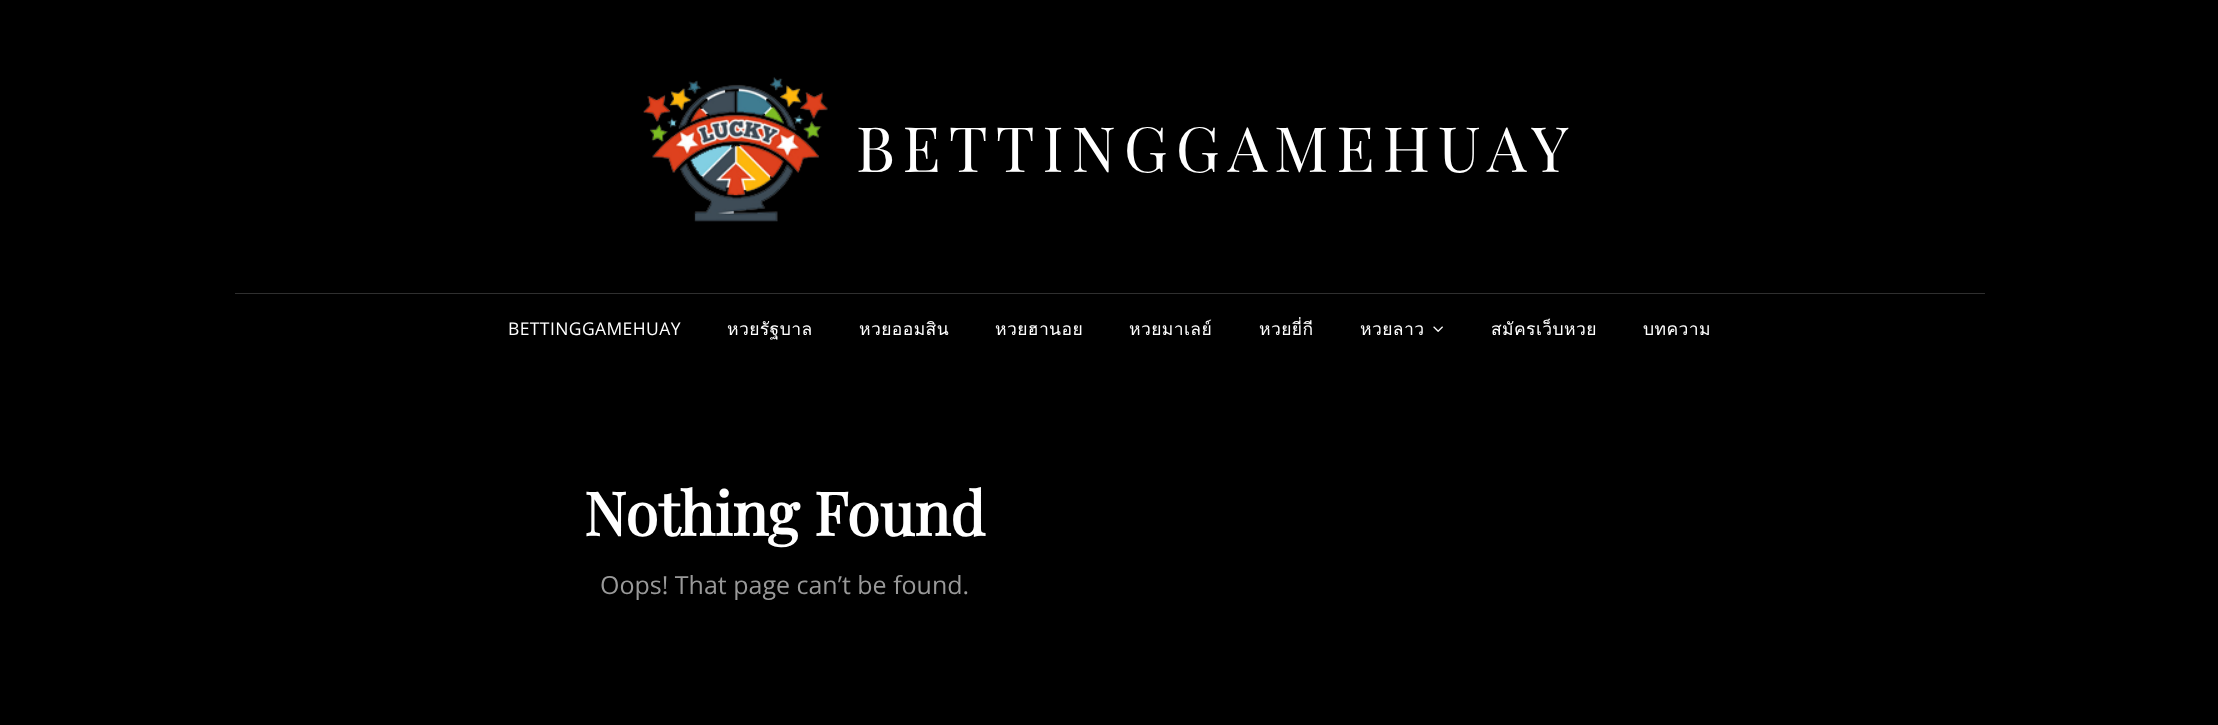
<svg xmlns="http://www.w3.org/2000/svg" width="2218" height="725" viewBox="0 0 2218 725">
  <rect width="100%" height="100%" fill="#000"/>
  <image x="643" y="77" width="185" height="145" href="img/1.png"/>
  <path d="M235 293h1750v1H235z" fill="#2f2f2f"/>
  <image x="1433" y="326" width="10" height="6" href="img/2.png"/>
  <text x="856" y="172" font-family="Playfair Display" font-size="62.5" letter-spacing="8.1" fill="#fff">BETTINGGAMEHUAY</text>
  <text x="508" y="335" font-family="Open Sans" font-size="17.5" letter-spacing="0.4" fill="#fff">BETTINGGAMEHUAY</text>
  <g font-family="Loma" font-size="17.5" letter-spacing="0.4" fill="#fff">
    <text x="727" y="335">หวยรัฐบาล</text>
    <text x="859" y="335">หวยออมสิน</text>
    <text x="995" y="335">หวยฮานอย</text>
    <text x="1129" y="335">หวยมาเลย์</text>
    <text x="1259" y="335">หวยยี่กี</text>
    <text x="1360" y="335">หวยลาว</text>
    <text x="1491" y="335">สมัครเว็บหวย</text>
    <text x="1643" y="335">บทความ</text>
  </g>
  <text x="584" y="536" font-family="Playfair Display" font-size="60" font-weight="bold" fill="#fff">Nothing Found</text>
  <text x="600" y="594" font-family="Open Sans" font-size="25" fill="#999">Oops! That page can’t be found.</text>
</svg>
